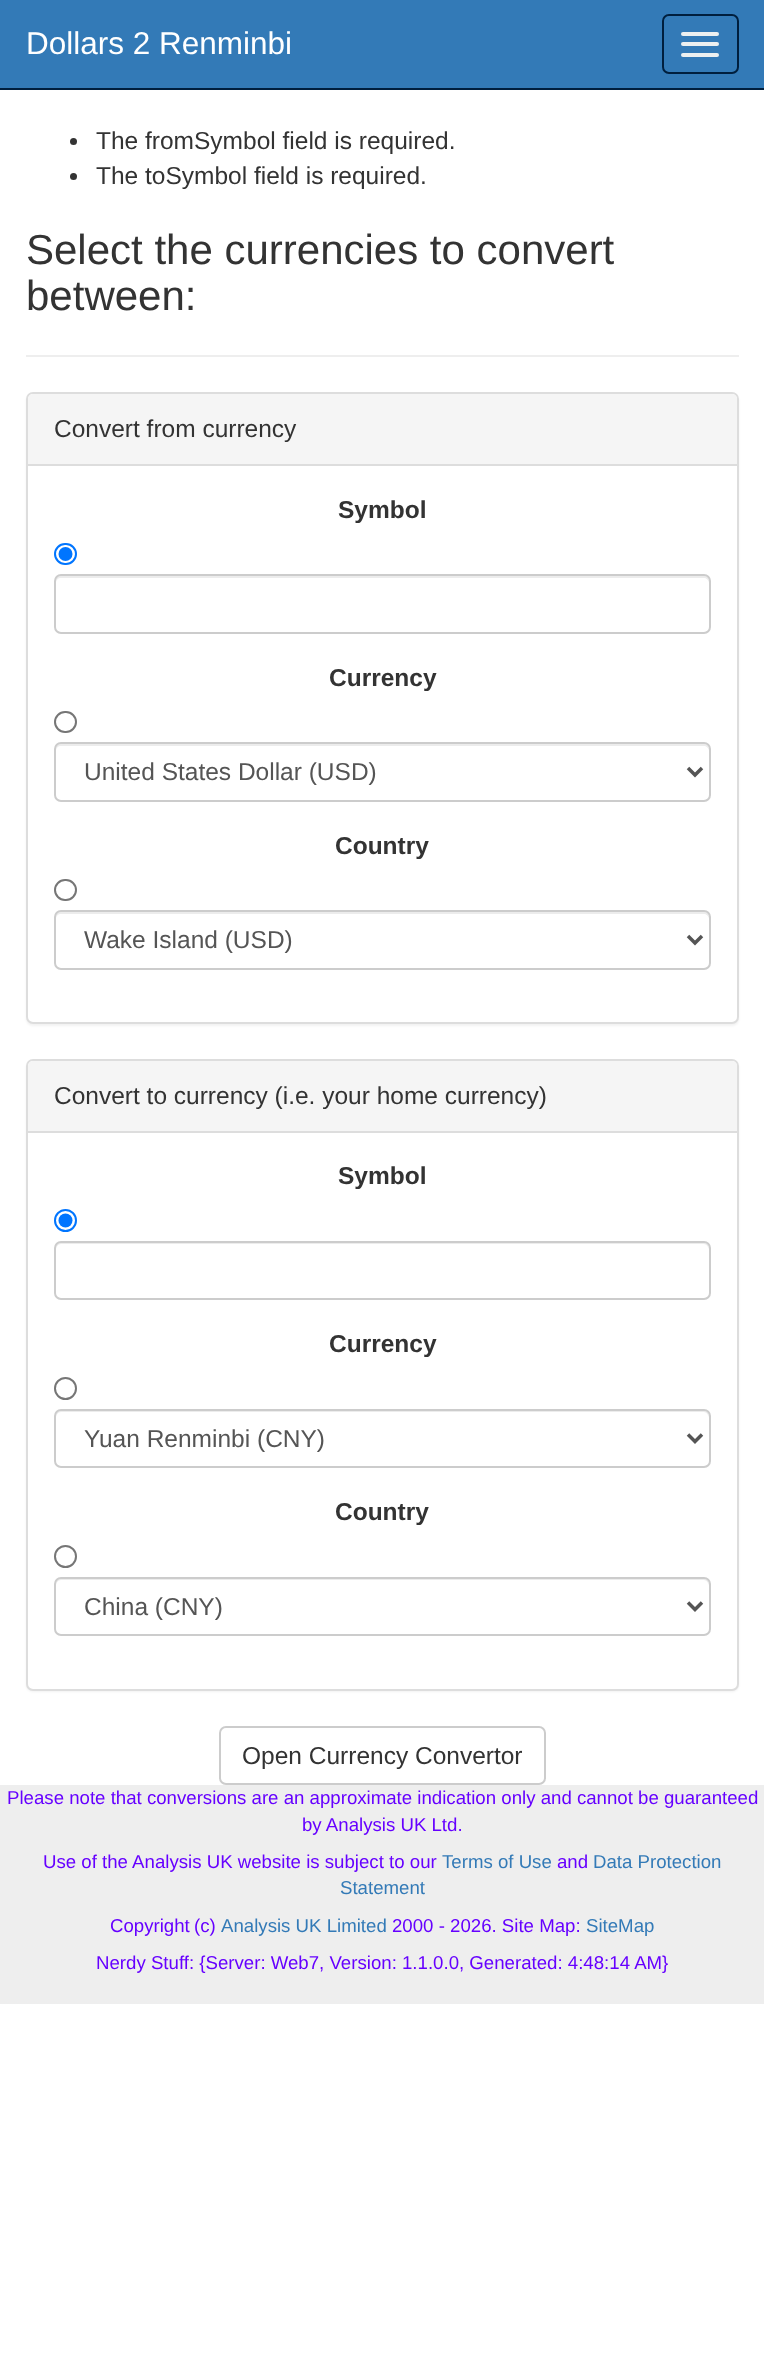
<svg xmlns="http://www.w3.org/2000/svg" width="764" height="2373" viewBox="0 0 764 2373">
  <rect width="100%" height="100%" fill="#fff"/>
  <path d="M0 0h764v88H0z" fill="#337ab7"/>
  <path d="M0 88h764v2H0z" fill="#001f3e"/>
  <rect x="663" y="15" width="75" height="58" rx="6" fill="none" stroke="#001f3e" stroke-width="2"/>
  <rect x="681" y="32" width="38" height="4" rx="2" fill="#ecf0f1"/>
  <rect x="681" y="42" width="38" height="4" rx="2" fill="#ecf0f1"/>
  <rect x="681" y="53" width="38" height="4" rx="2" fill="#ecf0f1"/>
  <circle cx="73.5" cy="141.5" r="3.5" fill="#333"/>
  <circle cx="73.5" cy="176.5" r="3.5" fill="#333"/>
  <path d="M26 355h713v2H26z" fill="#eee"/>
  <rect x="26" y="394" width="713" height="632" rx="7" fill="#0000000d" filter="blur(1px)"/>
  <rect x="27" y="393" width="711" height="630" rx="6" fill="#fff" stroke="#ddd" stroke-width="2"/>
  <path d="M33 394H732C735 394 737 396 737 399V466H28V399C28 396 30 394 33 394Z" fill="#f5f5f5"/>
  <path d="M28 464h709v2H28z" fill="#ddd"/>
  <rect x="55" y="544" width="21" height="20" rx="10" fill="none" stroke="#0075ff" stroke-width="2"/>
  <circle cx="65.5" cy="554" r="7" fill="#0075ff"/>
  <path d="M61 578H704C706 578 709 580 709 583V581C709 578 707 576 704 576H61C58 576 56 578 56 581V583C56 580 58 578 61 578Z" fill="#ececec"/>
  <rect x="55" y="575" width="655" height="58" rx="6" fill="none" stroke="#ccc" stroke-width="2"/>
  <rect x="55" y="712" width="21" height="20" rx="10" fill="none" stroke="#767676" stroke-width="2"/>
  <path d="M61 746H704C706 746 709 748 709 751V749C709 746 707 744 704 744H61C58 744 56 746 56 749V751C56 748 58 746 61 746Z" fill="#ececec"/>
  <rect x="55" y="743" width="655" height="58" rx="6" fill="none" stroke="#ccc" stroke-width="2"/>
  <path d="M688 768L695 775L702 768" fill="none" stroke="#555" stroke-width="3.5"/>
  <rect x="55" y="880" width="21" height="20" rx="10" fill="none" stroke="#767676" stroke-width="2"/>
  <path d="M61 914H704C706 914 709 916 709 919V917C709 914 707 912 704 912H61C58 912 56 914 56 917V919C56 916 58 914 61 914Z" fill="#ececec"/>
  <rect x="55" y="911" width="655" height="58" rx="6" fill="none" stroke="#ccc" stroke-width="2"/>
  <path d="M688 936L695 943L702 936" fill="none" stroke="#555" stroke-width="3.5"/>
  <rect x="26" y="1061" width="713" height="631" rx="7" fill="#0000000d" filter="blur(1px)"/>
  <rect x="27" y="1060" width="711" height="630" rx="6" fill="#fff" stroke="#ddd" stroke-width="2"/>
  <path d="M33 1061H732C735 1061 737 1063 737 1066V1132H28V1066C28 1063 30 1061 33 1061Z" fill="#f5f5f5"/>
  <path d="M28 1131h709v2H28z" fill="#ddd"/>
  <circle cx="65.5" cy="1220.5" r="10.5" fill="none" stroke="#0075ff" stroke-width="2"/>
  <circle cx="65.5" cy="1220.5" r="7" fill="#0075ff"/>
  <path d="M61 1244H704C706 1244 709 1247 709 1250V1248C709 1245 707 1243 704 1243H61C58 1243 56 1245 56 1248V1250C56 1247 58 1244 61 1244Z" fill="#ececec"/>
  <rect x="55" y="1242" width="655" height="57" rx="6" fill="none" stroke="#ccc" stroke-width="2"/>
  <circle cx="65.5" cy="1388.5" r="10.5" fill="none" stroke="#767676" stroke-width="2"/>
  <path d="M61 1412H704C706 1412 709 1415 709 1418V1416C709 1413 707 1411 704 1411H61C58 1411 56 1413 56 1416V1418C56 1415 58 1412 61 1412Z" fill="#ececec"/>
  <rect x="55" y="1410" width="655" height="57" rx="6" fill="none" stroke="#ccc" stroke-width="2"/>
  <path d="M688 1434.5L695 1441.5L702 1434.5" fill="none" stroke="#555" stroke-width="3.5"/>
  <circle cx="65.5" cy="1556.5" r="10.5" fill="none" stroke="#767676" stroke-width="2"/>
  <path d="M61 1580H704C706 1580 709 1583 709 1586V1584C709 1581 707 1579 704 1579H61C58 1579 56 1581 56 1584V1586C56 1583 58 1580 61 1580Z" fill="#ececec"/>
  <rect x="55" y="1578" width="655" height="57" rx="6" fill="none" stroke="#ccc" stroke-width="2"/>
  <path d="M688 1602.5L695 1609.5L702 1602.5" fill="none" stroke="#555" stroke-width="3.5"/>
  <rect x="220" y="1727" width="325" height="57" rx="6" fill="none" stroke="#ccc" stroke-width="2"/>
  <path d="M0 1785h764v219H0z" fill="#eee"/>
  <text x="26" y="54" font-family="Liberation Sans" font-size="31.5" fill="#fff">Dollars 2 Renminbi</text>
  <g font-family="Liberation Sans" font-size="24.5" fill="#333">
    <text x="96" y="149">The fromSymbol field is required.</text>
    <text x="96" y="184">The toSymbol field is required.</text>
  </g>
  <g font-family="Liberation Sans" font-size="42" fill="#333">
    <text x="26" y="264">Select the currencies to convert</text>
    <text x="26" y="310">between:</text>
  </g>
  <text x="54" y="437" font-family="Liberation Sans" font-size="24.5" fill="#333">Convert from currency</text>
  <g font-family="Liberation Sans" font-size="24.5" font-weight="bold" fill="#333">
    <text x="338" y="518">Symbol</text>
    <text x="329" y="686">Currency</text>
  </g>
  <text x="84" y="780" font-family="Liberation Sans" font-size="24.5" fill="#555">United States Dollar (USD)</text>
  <text x="335" y="854" font-family="Liberation Sans" font-size="24.5" font-weight="bold" fill="#333">Country</text>
  <text x="84" y="948" font-family="Liberation Sans" font-size="24.5" fill="#555">Wake Island (USD)</text>
  <text x="54" y="1104" font-family="Liberation Sans" font-size="24.5" fill="#333">Convert to currency (i.e. your home currency)</text>
  <g font-family="Liberation Sans" font-size="24.5" font-weight="bold" fill="#333">
    <text x="338" y="1184">Symbol</text>
    <text x="329" y="1352">Currency</text>
  </g>
  <text x="84" y="1447" font-family="Liberation Sans" font-size="24.5" fill="#555">Yuan Renminbi (CNY)</text>
  <text x="335" y="1520" font-family="Liberation Sans" font-size="24.5" font-weight="bold" fill="#333">Country</text>
  <text x="84" y="1615" font-family="Liberation Sans" font-size="24.5" fill="#555">China (CNY)</text>
  <text x="242" y="1764" font-family="Liberation Sans" font-size="24.5" fill="#333">Open Currency Convertor</text>
  <g font-family="Liberation Sans" font-size="18.65" fill="#60f">
    <text x="7" y="1804">Please note that conversions are an approximate indication only and cannot be guaranteed</text>
    <text x="302" y="1831">by Analysis UK Ltd.</text>
    <text x="43" y="1868">Use of the Analysis UK website is subject to our</text>
  </g>
  <text x="442" y="1868" font-family="Liberation Sans" font-size="18.65" fill="#337ab7">Terms of Use</text>
  <text x="557" y="1868" font-family="Liberation Sans" font-size="18.65" fill="#60f">and</text>
  <g font-family="Liberation Sans" font-size="18.65" fill="#337ab7">
    <text x="593" y="1868">Data Protection</text>
    <text x="340" y="1894">Statement</text>
  </g>
  <text x="110" y="1932" word-spacing="-1" font-family="Liberation Sans" font-size="18.65" fill="#60f">Copyright (c)</text>
  <text x="221" y="1932" font-family="Liberation Sans" font-size="18.65" fill="#337ab7">Analysis UK Limited</text>
  <text x="392" y="1932" font-family="Liberation Sans" font-size="18.65" fill="#60f">2000 - 2026. Site Map:</text>
  <text x="586" y="1932" font-family="Liberation Sans" font-size="18.65" fill="#337ab7">SiteMap</text>
  <text x="96" y="1969" font-family="Liberation Sans" font-size="18.65" fill="#60f">Nerdy Stuff: {Server: Web7, Version: 1.1.0.0, Generated: 4:48:14 AM}</text>
</svg>
